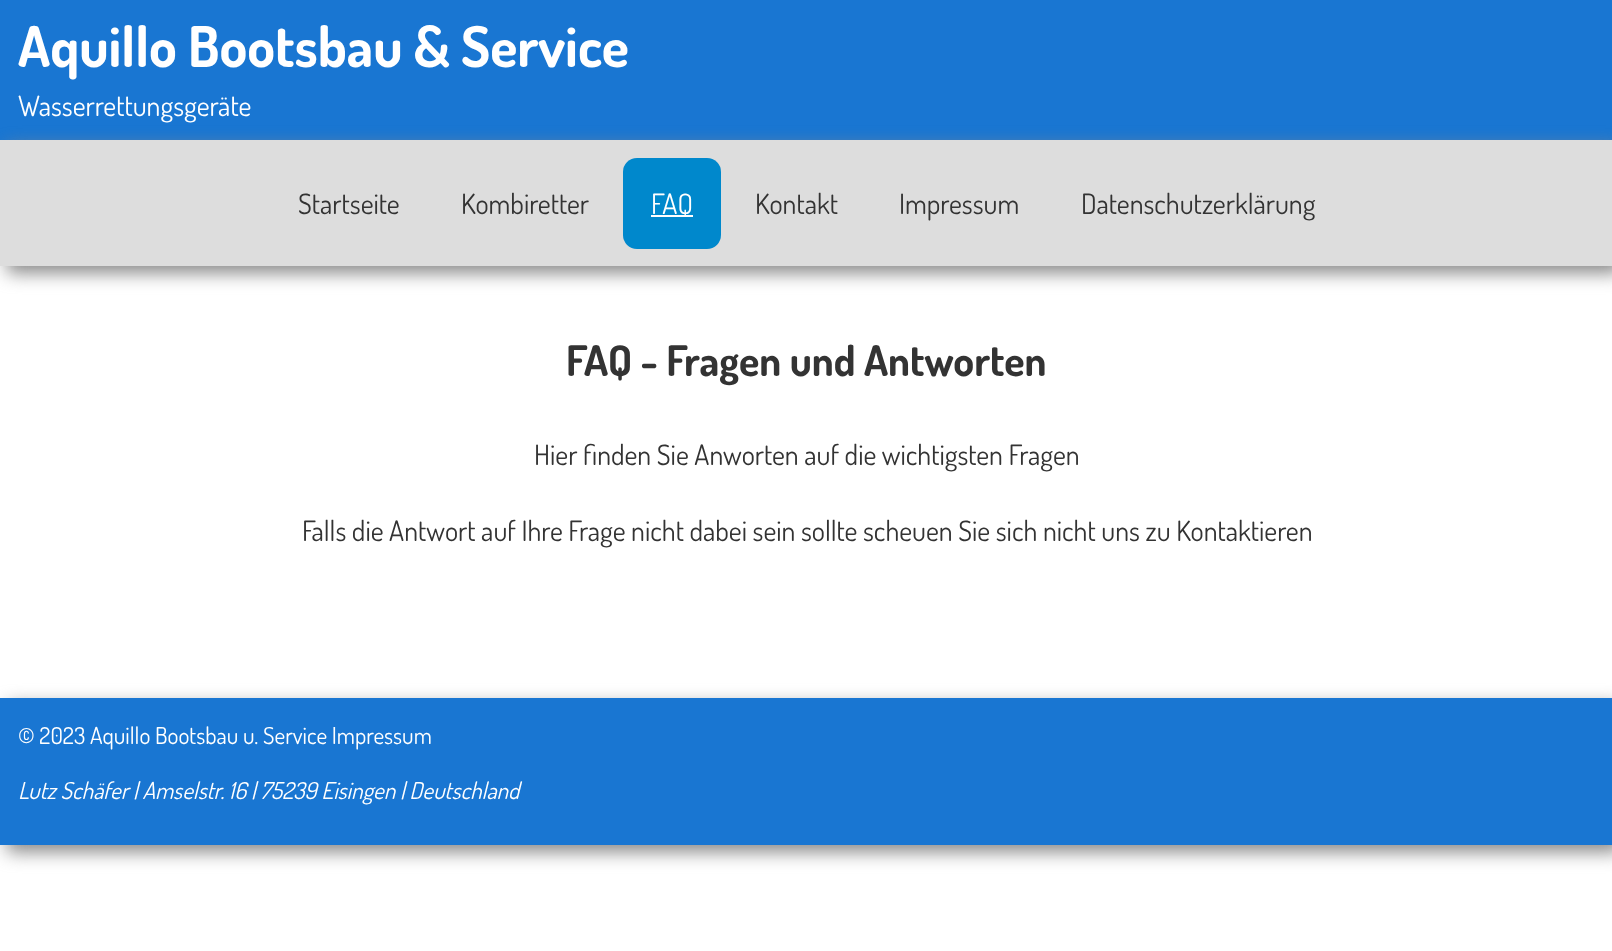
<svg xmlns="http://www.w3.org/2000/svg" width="1612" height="951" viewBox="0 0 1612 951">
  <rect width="100%" height="100%" fill="#fff"/>
  <path d="M0 0h1612v140H0z" fill="#1976d2"/>
  <path d="M7 147h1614v126H7z" fill="#888" filter="blur(9px)"/>
  <path d="M0 140h1612v126H0z" fill="#ddd"/>
  <rect x="623" y="158" width="98" height="91" rx="14" fill="#08c"/>
  <path d="M651 215h42v2H651z" fill="#fff"/>
  <path d="M7 705h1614v147H7z" fill="#888" filter="blur(9px)"/>
  <path d="M0 698h1612v147H0z" fill="#1976d2"/>
  <text x="18" y="67" font-family="Dosis" font-size="56" font-weight="bold" fill="#fff">Aquillo Bootsbau &amp; Service</text>
  <text x="18" y="116" font-family="Dosis" font-size="28" fill="#fff">Wasserrettungsgeräte</text>
  <g font-family="Dosis" font-size="28" fill="#333">
    <text x="298" y="214">Startseite</text>
    <text x="461" y="214">Kombiretter</text>
  </g>
  <text x="651" y="214" font-family="Dosis" font-size="28" fill="#fff">FAQ</text>
  <g font-family="Dosis" font-size="28" fill="#333">
    <text x="755" y="214">Kontakt</text>
    <text x="899" y="214">Impressum</text>
    <text x="1081" y="214">Datenschutzerklärung</text>
  </g>
  <text x="566" y="376" font-family="Dosis" font-size="42" font-weight="bold" fill="#333">FAQ - Fragen und Antworten</text>
  <g font-family="Dosis" font-size="28" fill="#333">
    <text x="534" y="465">Hier finden Sie Anworten auf die wichtigsten Fragen</text>
    <text x="302" y="541">Falls die Antwort auf Ihre Frage nicht dabei sein sollte scheuen Sie sich nicht uns zu Kontaktieren</text>
  </g>
  <text x="18" y="744" font-family="Dosis" font-size="23.3" fill="#fff">© 2023 Aquillo Bootsbau u. Service Impressum</text>
  <text x="18" y="799" font-family="Dosis" font-size="23.3" font-style="italic" fill="#fff">Lutz Schäfer | Amselstr. 16 | 75239 Eisingen | Deutschland</text>
</svg>
